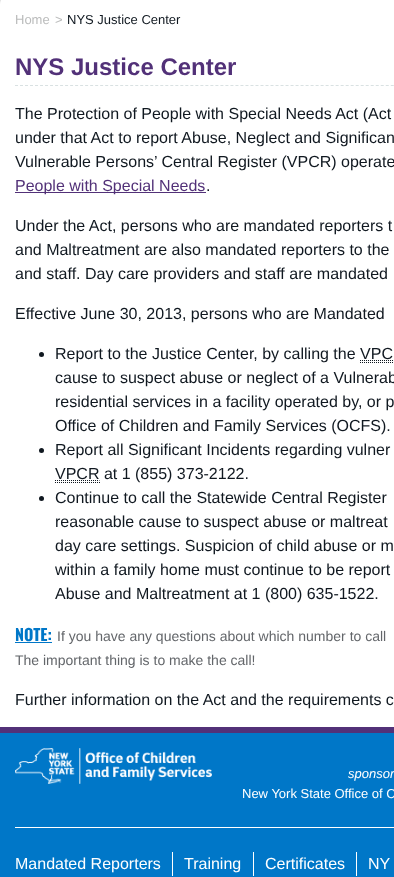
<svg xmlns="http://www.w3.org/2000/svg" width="394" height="877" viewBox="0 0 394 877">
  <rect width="100%" height="100%" fill="#fff"/>
  <rect y="-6" width="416" height="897" rx="10" fill="#00000066" filter="blur(4px)"/>
  <rect y="-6" width="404" height="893" rx="10" fill="#fff"/>
  <path d="M15 85.5H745" fill="none" stroke="#d9e1e2" stroke-dasharray="3 2.01"/>
  <path d="M15 192h191v1H15z" fill="#523178"/>
  <circle cx="41.5" cy="354.5" r="2.5" fill="#101820"/>
  <path d="M360 362.5H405M360 360.5H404.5" fill="none" stroke="#101820" stroke-dasharray="1 1"/>
  <circle cx="41.5" cy="450.5" r="2.5" fill="#101820"/>
  <path d="M55 482.5H100M55 480.5H99.5" fill="none" stroke="#101820" stroke-dasharray="1 1"/>
  <circle cx="41.5" cy="498.5" r="2.5" fill="#101820"/>
  <path d="M15 642h37v1H15z" fill="#0077c8"/>
  <path d="M0 733h394v144H0z" fill="#0077c8"/>
  <path d="M0 727h394v6H0z" fill="#523178"/>
  <image x="15" y="748" width="197" height="36" href="img/1.png"/>
  <path d="M15 827h379v1H15z" fill="#fff"/>
  <path d="M172 852h1v24H172z" fill="#fff"/>
  <path d="M253 852h1v24H253z" fill="#fff"/>
  <path d="M356 852h1v24H356z" fill="#fff"/>
  <g font-family="Liberation Sans" font-size="13" fill="#bbbcbc">
    <text x="15" y="24">Home</text>
    <text x="55" y="24">&gt;</text>
  </g>
  <text x="67" y="24" font-family="Liberation Sans" font-size="13" fill="#101820">NYS Justice Center</text>
  <text x="15" y="75" font-family="Liberation Sans" font-size="24" font-weight="bold" fill="#523178">NYS Justice Center</text>
  <g font-family="Liberation Sans" font-size="16" fill="#101820">
    <text x="15" y="119">The Protection of People with Special Needs Act (Act</text>
    <text x="15" y="143">under that Act to report Abuse, Neglect and Significan</text>
    <text x="15" y="167">Vulnerable Persons’ Central Register (VPCR) operate</text>
  </g>
  <text x="15" y="191" font-family="Liberation Sans" font-size="16" fill="#523178">People with Special Needs</text>
  <g font-family="Liberation Sans" font-size="16" fill="#101820">
    <text x="206" y="191">.</text>
    <text x="15" y="231">Under the Act, persons who are mandated reporters t</text>
    <text x="15" y="255">and Maltreatment are also mandated reporters to the</text>
    <text x="15" y="279">and staff. Day care providers and staff are mandated</text>
    <text x="15" y="319">Effective June 30, 2013, persons who are Mandated</text>
    <text x="55" y="359">Report to the Justice Center, by calling the VPC</text>
    <text x="55" y="383">cause to suspect abuse or neglect of a Vulnerab</text>
    <text x="55" y="407">residential services in a facility operated by, or p</text>
    <text x="55" y="431">Office of Children and Family Services (OCFS).</text>
    <text x="55" y="455">Report all Significant Incidents regarding vulner</text>
    <text x="55" y="479">VPCR at 1 (855) 373-2122.</text>
    <text x="55" y="503">Continue to call the Statewide Central Register</text>
    <text x="55" y="527">reasonable cause to suspect abuse or maltreat</text>
    <text x="55" y="551">day care settings. Suspicion of child abuse or m</text>
    <text x="55" y="575">within a family home must continue to be report</text>
    <text x="55" y="599">Abuse and Maltreatment at 1 (800) 635-1522.</text>
  </g>
  <text x="15" y="641" font-family="Oswald" font-size="16" font-weight="bold" fill="#0077c8">NOTE:</text>
  <g font-family="Liberation Sans" font-size="14" fill="#63666a">
    <text x="57" y="641">If you have any questions about which number to call</text>
    <text x="15" y="665">The important thing is to make the call!</text>
  </g>
  <text x="15" y="705" font-family="Liberation Sans" font-size="16" fill="#101820">Further information on the Act and the requirements c</text>
  <text x="348" y="778" font-family="Liberation Sans" font-size="13" font-style="italic" fill="#fff">sponsor</text>
  <text x="242" y="798" font-family="Liberation Sans" font-size="13" fill="#fff">New York State Office of C</text>
  <g font-family="Liberation Sans" font-size="16" fill="#fff">
    <text x="15" y="869">Mandated Reporters</text>
    <text x="184" y="869">Training</text>
    <text x="265" y="869">Certificates</text>
    <text x="368" y="869">NY</text>
  </g>
</svg>
